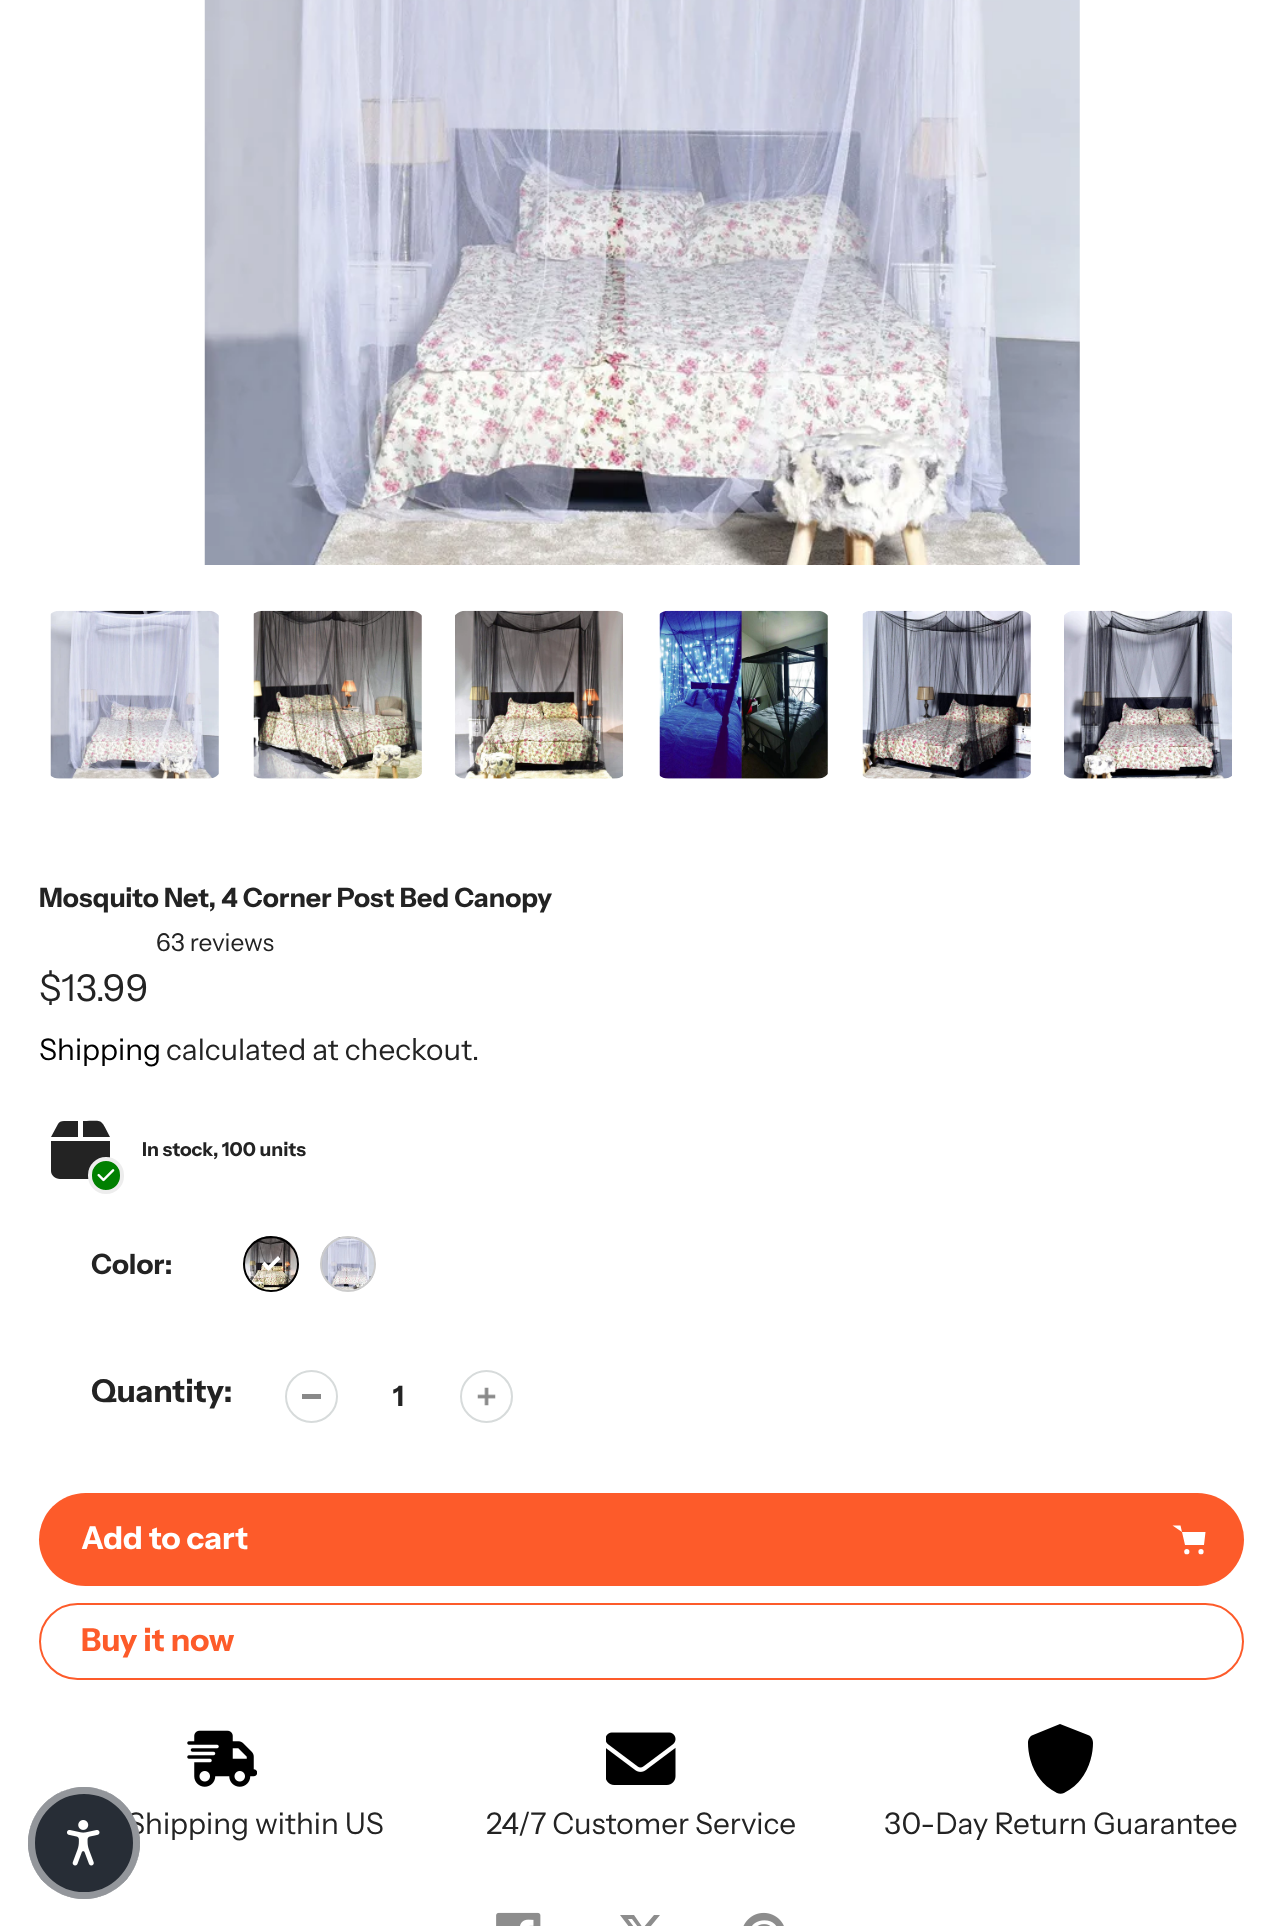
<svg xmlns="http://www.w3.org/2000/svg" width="1282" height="1926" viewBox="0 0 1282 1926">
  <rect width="100%" height="100%" fill="#fff"/>
  <image x="204" y="0" width="876" height="565" href="img/1.png"/>
  <image x="50" y="610" width="169" height="169" href="img/2.png"/>
  <image x="253" y="610" width="169" height="169" href="img/3.png"/>
  <image x="455" y="610" width="168" height="169" href="img/4.png"/>
  <image x="659" y="610" width="169" height="169" href="img/5.png"/>
  <image x="862" y="610" width="169" height="169" href="img/6.png"/>
  <image x="1064" y="610" width="168" height="169" href="img/7.png"/>
  <path d="M58 1124L51 1137H78V1121H64C61 1121 59 1122 58 1124ZM83 1137H110C100 1118 104 1121 83 1121ZM110 1141H51V1171C51 1175 55 1179 60 1179H101C106 1179 110 1175 110 1171Z" fill="#232323"/>
  <rect x="90" y="1159" width="32" height="33" rx="16" fill="#008000" stroke="#ededed" stroke-width="4"/>
  <image x="97" y="1169" width="18" height="13" href="img/8.png"/>
  <image x="245" y="1237" width="53" height="53" href="img/9.png"/>
  <circle cx="271" cy="1264" r="27" fill="none" stroke="#000" stroke-width="2"/>
  <path d="M268.5 1271L262 1264.5L264.5 1261.5L268.5 1265.5L278 1256L280.5 1259Z" fill="#fff"/>
  <image x="322" y="1237" width="53" height="53" href="img/10.png"/>
  <circle cx="348" cy="1264" r="27" fill="none" stroke="#ccc" stroke-width="2"/>
  <path d="M302 1394h19v5H302z" fill="#898989"/>
  <circle cx="311.5" cy="1396.5" r="25.5" fill="none" stroke="#d7dbdb" stroke-width="2"/>
  <image x="477" y="1387" width="19" height="19" href="img/11.png"/>
  <circle cx="486.5" cy="1396.5" r="25.5" fill="none" stroke="#d7dbdb" stroke-width="2"/>
  <rect x="39" y="1493" width="1205" height="93" rx="46.5" fill="#fd5b2a"/>
  <circle cx="1186.8" cy="1551.7" r="2.6" fill="#fff"/>
  <circle cx="1201" cy="1551.7" r="2.6" fill="#fff"/>
  <path d="M1182 1532H1205.5L1204 1545H1185L1180.5 1525.5H1172.5" fill="#fff" fill-rule="evenodd"/>
  <rect x="40" y="1604" width="1203" height="75" rx="37.5" fill="none" stroke="#fd5b2a" stroke-width="2"/>
  <image x="187" y="1730" width="70" height="57" href="img/12.png"/>
  <image x="606" y="1732" width="70" height="53" href="img/13.png"/>
  <path d="M1060 1724L1088 1735C1091 1736 1093 1739 1093 1743C1093 1756 1088 1781 1064 1793C1062 1794 1059 1794 1057 1793C1033 1781 1028 1756 1028 1743C1028 1739 1030 1736 1033 1735Z" fill="#000"/>
  <image x="496" y="1912" width="45" height="14" href="img/14.png"/>
  <path d="M654 1915H660L646 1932L663 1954H650L639 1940L628 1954H621L636 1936L620 1915H634L643 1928ZM651 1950H655L632 1919H628Z" fill="#8d8d8d"/>
  <image x="743" y="1912" width="41" height="14" href="img/15.png"/>
  <text x="39" y="907" font-family="Instrument Sans" font-size="26.6" font-weight="bold" fill="#232323">Mosquito Net, 4 Corner Post Bed Canopy</text>
  <text x="156" y="951" font-family="Instrument Sans" font-size="24.5" fill="#232323">63 reviews</text>
  <text x="39" y="1001" font-family="Instrument Sans" font-size="37" fill="#232323">$13.99</text>
  <text x="39" y="1060" font-family="Instrument Sans" font-size="29.75" fill="#000">Shipping</text>
  <text x="166" y="1060" font-family="Instrument Sans" font-size="29.75" fill="#232323">calculated at checkout.</text>
  <text x="142" y="1156" font-family="Instrument Sans" font-size="19.25" font-weight="bold" fill="#232323">In stock, 100 units</text>
  <text x="91" y="1274" font-family="Instrument Sans" font-size="28" font-weight="bold" fill="#232323">Color:</text>
  <text x="91" y="1402" font-family="Instrument Sans" font-size="31.5" font-weight="bold" fill="#232323">Quantity:</text>
  <text x="393" y="1406" font-family="Instrument Sans" font-size="28" font-weight="bold" fill="#232323">1</text>
  <text x="81" y="1549" font-family="Instrument Sans" font-size="31.5" font-weight="bold" fill="#fff">Add to cart</text>
  <text x="81" y="1651" font-family="Instrument Sans" font-size="31.5" font-weight="bold" fill="#fd5b2a">Buy it now</text>
  <g font-family="Instrument Sans" font-size="29.75" fill="#232323">
    <text x="127" y="1834">Shipping within US</text>
    <text x="486" y="1834">24/7 Customer Service</text>
    <text x="884" y="1834">30-Day Return Guarantee</text>
  </g>
  <circle cx="84" cy="1843" r="56" fill="#272d36"/>
  <circle cx="84" cy="1843" r="52.5" fill="none" stroke="#ffffff80" stroke-width="7"/>
  <image x="67" y="1820" width="33" height="46" href="img/16.png"/>
</svg>
